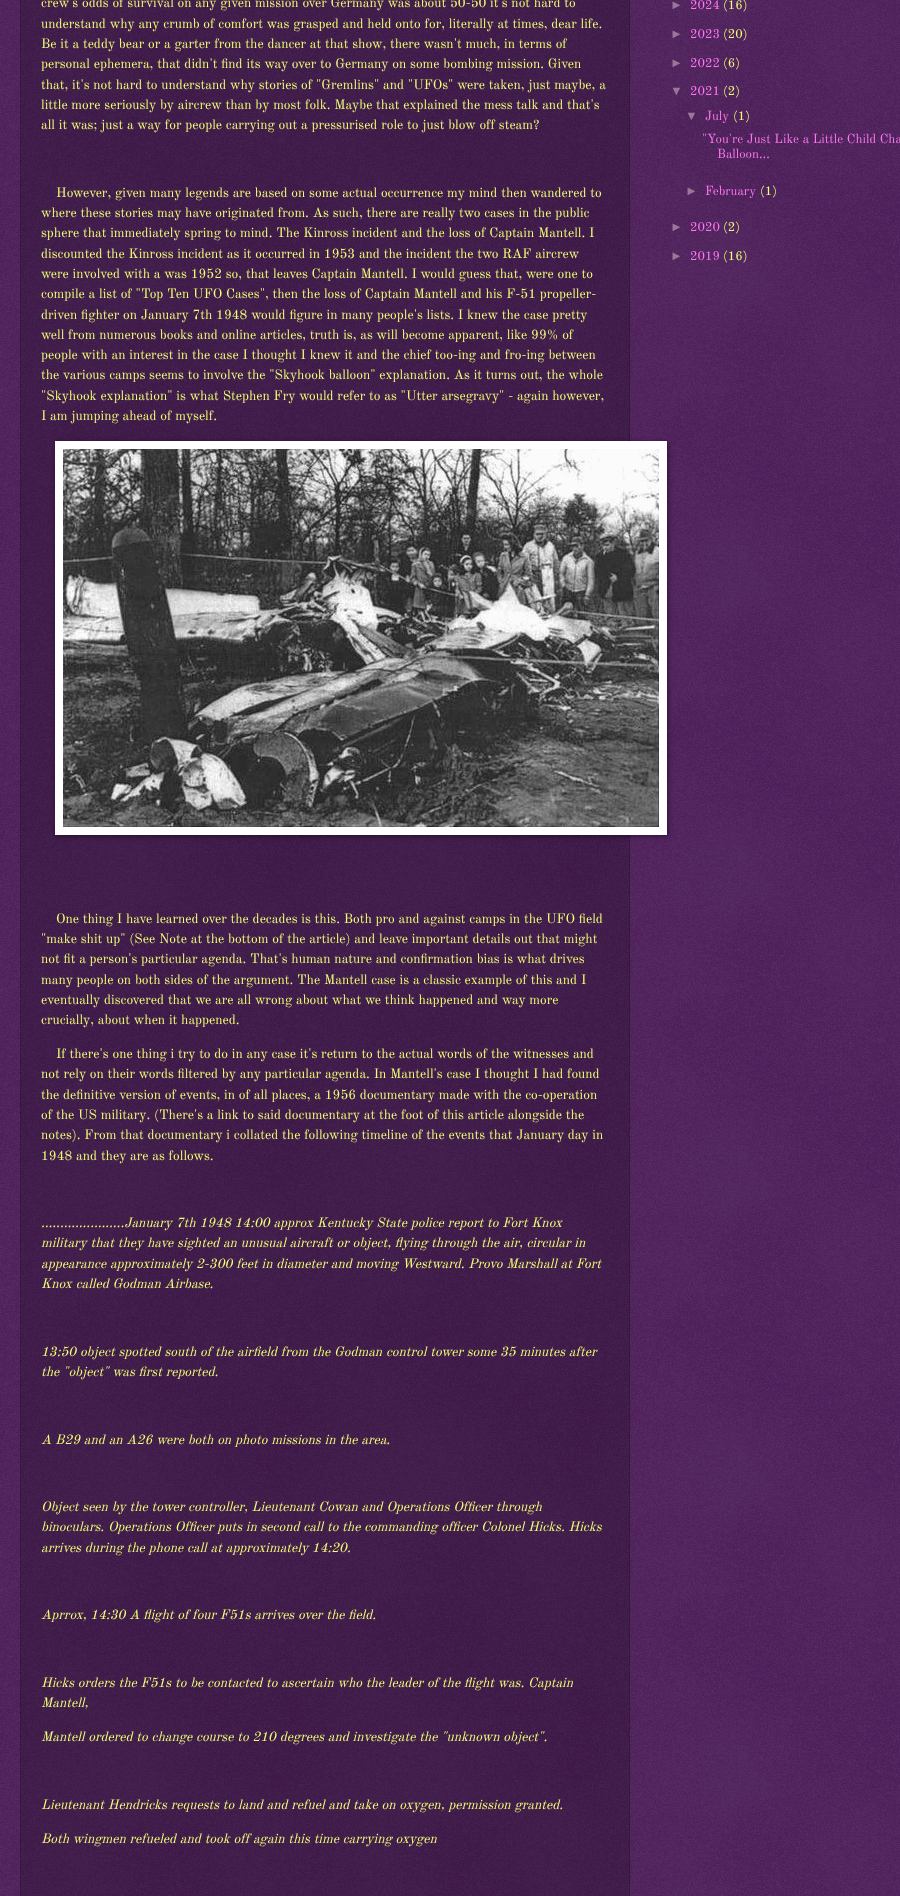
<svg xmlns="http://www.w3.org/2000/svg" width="900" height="1896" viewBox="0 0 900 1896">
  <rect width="100%" height="100%" fill="#350044"/>
  <image x="0" y="0" width="900" height="1896" href="img/1.png"/>
  <path d="M20 0h610v1896H20z" fill="#00000033"/>
  <path d="M629.5-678V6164" fill="none" stroke="#321133" stroke-dasharray="1 1"/>
  <path d="M20.5-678V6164" fill="none" stroke="#321133" stroke-dasharray="1 1"/>
  <path d="M56 442h612v394H56z" fill="#00000080" filter="blur(2.5px)"/>
  <path d="M55 441h612v394H55z" fill="#fff"/>
  <image x="63" y="449" width="596" height="378" href="img/2.png"/>
  <g font-family="Old Standard TT" font-size="13.5" fill="#f0ff77">
    <text x="41" y="7">crew's odds of survival on any given mission over Germany was about 50-50 it's not hard to</text>
    <text x="41" y="28">understand why any crumb of comfort was grasped and held onto for, literally at times, dear life.</text>
    <text x="41" y="48">Be it a teddy bear or a garter from the dancer at that show, there wasn't much, in terms of</text>
    <text x="41" y="68">personal ephemera, that didn't find its way over to Germany on some bombing mission. Given</text>
    <text x="41" y="89">that, it's not hard to understand why stories of "Gremlins" and "UFOs" were taken, just maybe, a</text>
    <text x="41" y="109">little more seriously by aircrew than by most folk. Maybe that explained the mess talk and that's</text>
    <text x="41" y="129">all it was; just a way for people carrying out a pressurised role to just blow off steam?</text>
    <text x="56" y="197">However, given many legends are based on some actual occurrence my mind then wandered to</text>
    <text x="41" y="217">where these stories may have originated from. As such, there are really two cases in the public</text>
    <text x="41" y="237">sphere that immediately spring to mind. The Kinross incident and the loss of Captain Mantell. I</text>
    <text x="41" y="258">discounted the Kinross incident as it occurred in 1953 and the incident the two RAF aircrew</text>
    <text x="41" y="278">were involved with a was 1952 so, that leaves Captain Mantell. I would guess that, were one to</text>
    <text x="41" y="298">compile a list of "Top Ten UFO Cases", then the loss of Captain Mantell and his F-51 propeller-</text>
    <text x="41" y="319">driven fighter on January 7th 1948 would figure in many people's lists. I knew the case pretty</text>
    <text x="41" y="339">well from numerous books and online articles, truth is, as will become apparent, like 99% of</text>
    <text x="41" y="359">people with an interest in the case I thought I knew it and the chief too-ing and fro-ing between</text>
    <text x="41" y="379">the various camps seems to involve the "Skyhook balloon" explanation. As it turns out, the whole</text>
    <text x="41" y="400">"Skyhook explanation" is what Stephen Fry would refer to as "Utter arsegravy" - again however,</text>
    <text x="41" y="420">I am jumping ahead of myself.</text>
    <text x="56" y="923">One thing I have learned over the decades is this. Both pro and against camps in the UFO field</text>
    <text x="41" y="943">"make shit up" (See Note at the bottom of the article) and leave important details out that might</text>
    <text x="41" y="963">not fit a person's particular agenda. That's human nature and confirmation bias is what drives</text>
    <text x="41" y="984">many people on both sides of the argument. The Mantell case is a classic example of this and I</text>
    <text x="41" y="1004">eventually discovered that we are all wrong about what we think happened and way more</text>
    <text x="41" y="1024">crucially, about when it happened.</text>
    <text x="56" y="1058">If there's one thing i try to do in any case it's return to the actual words of the witnesses and</text>
    <text x="41" y="1078">not rely on their words filtered by any particular agenda. In Mantell's case I thought I had found</text>
    <text x="41" y="1099">the definitive version of events, in of all places, a 1956 documentary made with the co-operation</text>
    <text x="41" y="1119">of the US military. (There's a link to said documentary at the foot of this article alongside the</text>
    <text x="41" y="1139">notes). From that documentary i collated the following timeline of the events that January day in</text>
    <text x="41" y="1160">1948 and they are as follows.</text>
  </g>
  <g font-family="Old Standard TT" font-size="13.5" font-style="italic" fill="#f0ff77">
    <text x="41" y="1227">......................January 7th 1948 14:00 approx Kentucky State police report to Fort Knox</text>
    <text x="41" y="1247">military that they have sighted an unusual aircraft or object, flying through the air, circular in</text>
    <text x="41" y="1268">appearance approximately 2-300 feet in diameter and moving Westward. Provo Marshall at Fort</text>
    <text x="41" y="1288">Knox called Godman Airbase.</text>
    <text x="41" y="1356">13:50 object spotted south of the airfield from the Godman control tower some 35 minutes after</text>
    <text x="41" y="1376">the "object" was first reported.</text>
    <text x="41" y="1444">A B29 and an A26 were both on photo missions in the area.</text>
    <text x="41" y="1511">Object seen by the tower controller, Lieutenant Cowan and Operations Officer through</text>
    <text x="41" y="1531">binoculars. Operations Officer puts in second call to the commanding officer Colonel Hicks. Hicks</text>
    <text x="41" y="1552">arrives during the phone call at approximately 14:20.</text>
    <text x="41" y="1619">Aprrox, 14:30 A flight of four F51s arrives over the field.</text>
    <text x="41" y="1687">Hicks orders the F51s to be contacted to ascertain who the leader of the flight was. Captain</text>
    <text x="41" y="1707">Mantell,</text>
    <text x="41" y="1741">Mantell ordered to change course to 210 degrees and investigate the "unknown object".</text>
    <text x="41" y="1809">Lieutenant Hendricks requests to land and refuel and take on oxygen, permission granted.</text>
    <text x="41" y="1843">Both wingmen refueled and took off again this time carrying oxygen</text>
  </g>
  <text x="670" y="9" font-family="Liberation Sans" font-size="12.9" fill="#987799">►</text>
  <text x="690" y="9" font-family="Old Standard TT" font-size="12.9" fill="#ff77f0">2024</text>
  <text x="723" y="9" font-family="Old Standard TT" font-size="12.9" fill="#f0ff77">(16)</text>
  <text x="670" y="38" font-family="Liberation Sans" font-size="12.9" fill="#987799">►</text>
  <text x="690" y="38" font-family="Old Standard TT" font-size="12.9" fill="#ff77f0">2023</text>
  <text x="723" y="38" font-family="Old Standard TT" font-size="12.9" fill="#f0ff77">(20)</text>
  <text x="670" y="67" font-family="Liberation Sans" font-size="12.9" fill="#987799">►</text>
  <text x="690" y="67" font-family="Old Standard TT" font-size="12.9" fill="#ff77f0">2022</text>
  <text x="723" y="67" font-family="Old Standard TT" font-size="12.9" fill="#f0ff77">(6)</text>
  <text x="670" y="95" font-family="Liberation Sans" font-size="12.9" fill="#987799">▼</text>
  <text x="690" y="95" font-family="Old Standard TT" font-size="12.9" fill="#ff77f0">2021</text>
  <text x="723" y="95" font-family="Old Standard TT" font-size="12.9" fill="#f0ff77">(2)</text>
  <text x="685" y="120" font-family="Liberation Sans" font-size="12.9" fill="#987799">▼</text>
  <text x="705" y="120" font-family="Old Standard TT" font-size="12.9" fill="#ff77f0">July</text>
  <text x="733" y="120" font-family="Old Standard TT" font-size="12.9" fill="#f0ff77">(1)</text>
  <g font-family="Old Standard TT" font-size="12.9" fill="#ff77f0">
    <text x="702" y="143">"You're Just Like a Little Child Cha</text>
    <text x="717" y="158">Balloon...</text>
  </g>
  <text x="685" y="195" font-family="Liberation Sans" font-size="12.9" fill="#987799">►</text>
  <text x="705" y="195" font-family="Old Standard TT" font-size="12.9" fill="#ff77f0">February</text>
  <text x="760" y="195" font-family="Old Standard TT" font-size="12.9" fill="#f0ff77">(1)</text>
  <text x="670" y="231" font-family="Liberation Sans" font-size="12.9" fill="#987799">►</text>
  <text x="690" y="231" font-family="Old Standard TT" font-size="12.9" fill="#ff77f0">2020</text>
  <text x="723" y="231" font-family="Old Standard TT" font-size="12.9" fill="#f0ff77">(2)</text>
  <text x="670" y="260" font-family="Liberation Sans" font-size="12.9" fill="#987799">►</text>
  <text x="690" y="260" font-family="Old Standard TT" font-size="12.9" fill="#ff77f0">2019</text>
  <text x="723" y="260" font-family="Old Standard TT" font-size="12.9" fill="#f0ff77">(16)</text>
</svg>
